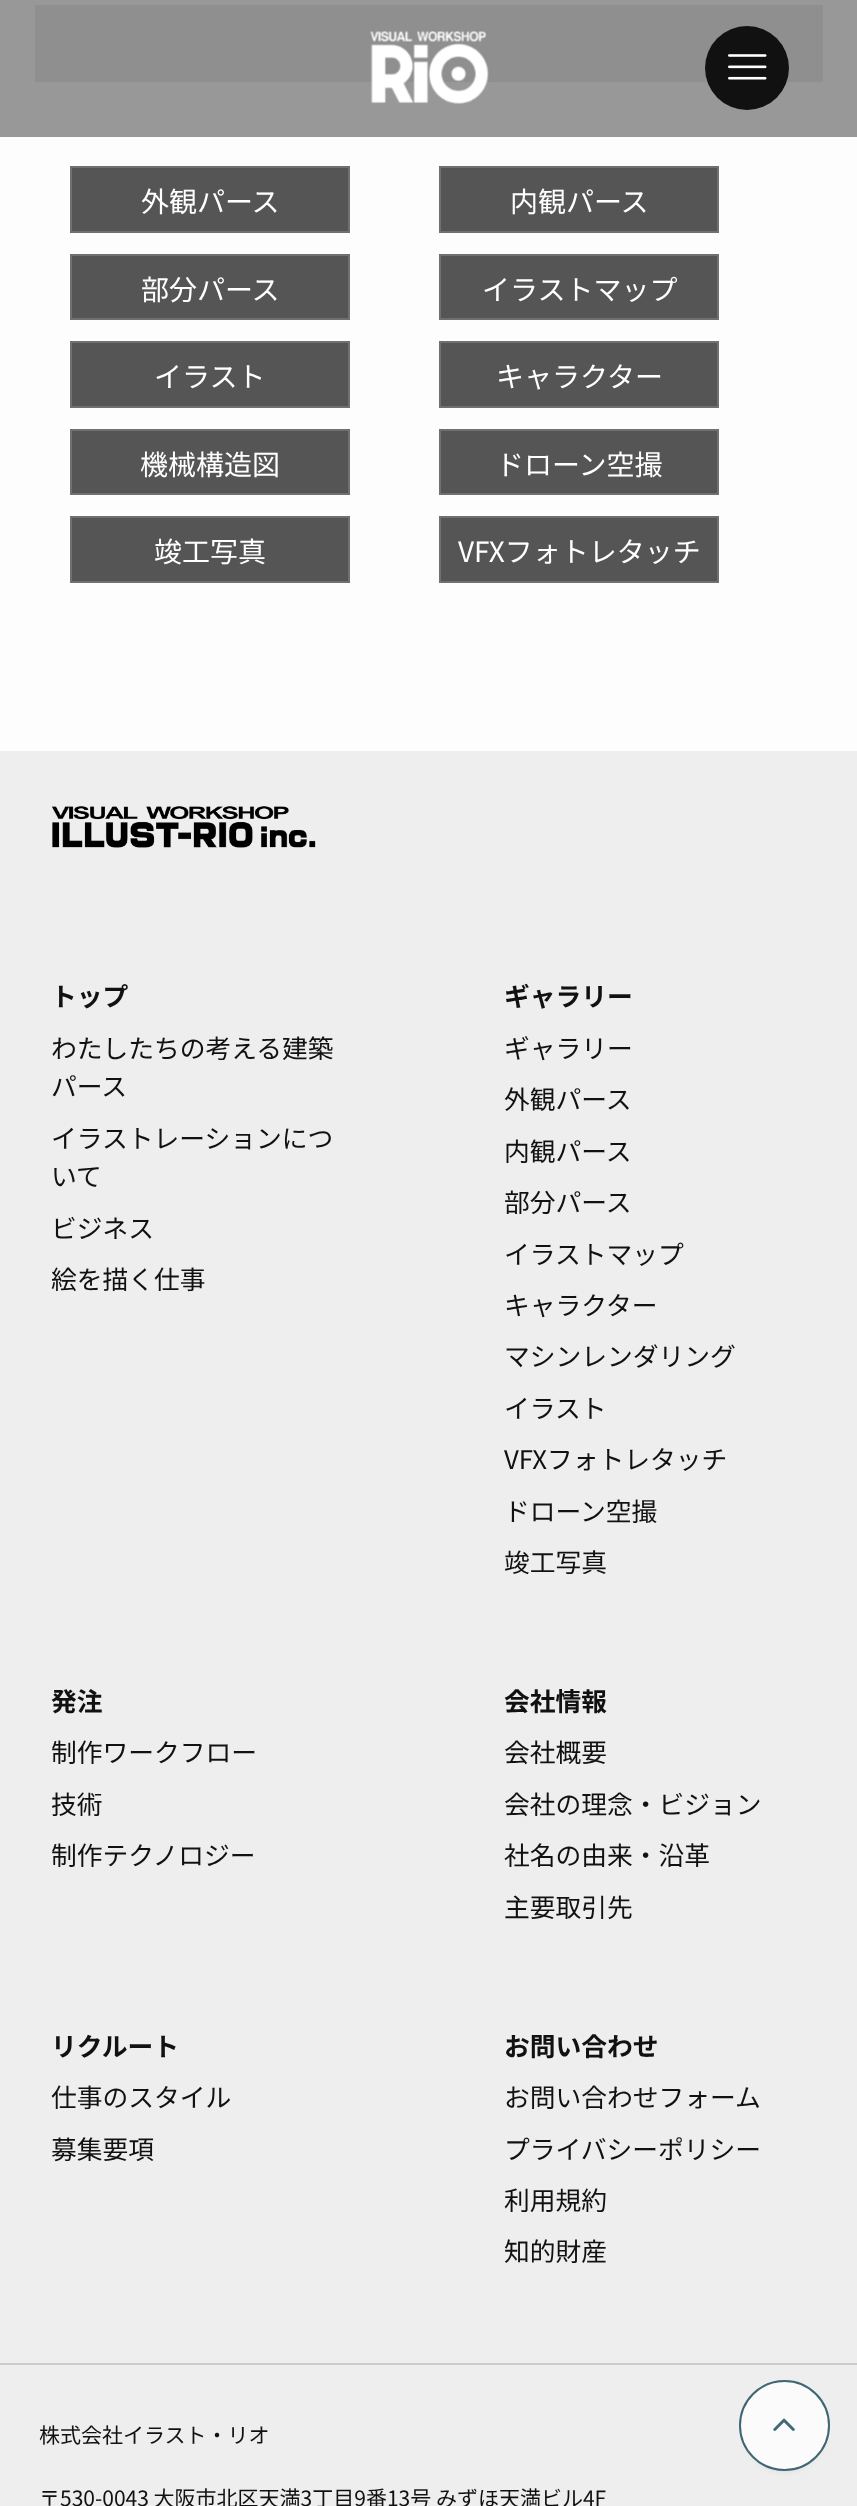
<svg xmlns="http://www.w3.org/2000/svg" width="857" height="2506" viewBox="0 0 857 2506">
  <rect width="100%" height="100%" fill="#fdfdfd"/>
  <path d="M0 0h857v137H0z" fill="#989898"/>
  <path d="M35 5h788v77H35z" fill="#8f8f8f"/>
  <image x="370" y="31" width="119" height="73" href="img/1.png"/>
  <circle cx="747" cy="68" r="42" fill="#111"/>
  <image x="728" y="54" width="39" height="26" href="img/2.png"/>
  <path d="M71 167h278v65H71z" fill="#555" stroke="#707070" stroke-width="2"/>
  <path d="M440 167h278v65H440z" fill="#555" stroke="#707070" stroke-width="2"/>
  <path d="M71 255h278v64H71z" fill="#555" stroke="#707070" stroke-width="2"/>
  <path d="M440 255h278v64H440z" fill="#555" stroke="#707070" stroke-width="2"/>
  <path d="M71 342h278v65H71z" fill="#555" stroke="#707070" stroke-width="2"/>
  <path d="M440 342h278v65H440z" fill="#555" stroke="#707070" stroke-width="2"/>
  <path d="M71 430h278v64H71z" fill="#555" stroke="#707070" stroke-width="2"/>
  <path d="M440 430h278v64H440z" fill="#555" stroke="#707070" stroke-width="2"/>
  <path d="M71 517h278v65H71z" fill="#555" stroke="#707070" stroke-width="2"/>
  <path d="M440 517h278v65H440z" fill="#555" stroke="#707070" stroke-width="2"/>
  <path d="M0 751h857v1755H0z" fill="#eee"/>
  <image x="52" y="806" width="264" height="42" href="img/3.png"/>
  <path d="M0 2363h857v2H0z" fill="#ccc"/>
  <rect x="746" y="2394" width="77" height="77" rx="38.5" fill="#3c3c3c1a" filter="blur(3.5px)"/>
  <circle cx="784.5" cy="2425.5" r="44.5" fill="#fbfbfb" stroke="#3f6675" stroke-width="2"/>
  <image x="773" y="2418" width="22" height="13" href="img/4.png"/>
  <g font-family="Noto Sans JP" font-size="28" fill="#fff">
    <text x="141" y="212">外観パース</text>
    <text x="510" y="212">内観パース</text>
    <text x="141" y="300">部分パース</text>
    <text x="482" y="300">イラストマップ</text>
    <text x="154" y="387">イラスト</text>
    <text x="496" y="387">キャラクター</text>
    <text x="140" y="475">機械構造図</text>
    <text x="496" y="475">ドローン空撮</text>
    <text x="154" y="562">竣工写真</text>
    <text x="458" y="562">VFXフォトレタッチ</text>
  </g>
  <text x="51" y="1006" font-family="Noto Sans JP" font-size="25.75" font-weight="bold" fill="#111">トップ</text>
  <g font-family="Noto Sans JP" font-size="25.75" fill="#111">
    <text x="51" y="1058">わたしたちの考える建築</text>
    <text x="51" y="1096">パース</text>
    <text x="51" y="1148">イラストレーションにつ</text>
    <text x="51" y="1186">いて</text>
    <text x="51" y="1238">ビジネス</text>
    <text x="51" y="1289">絵を描く仕事</text>
  </g>
  <text x="504" y="1006" font-family="Noto Sans JP" font-size="25.75" font-weight="bold" fill="#111">ギャラリー</text>
  <g font-family="Noto Sans JP" font-size="25.75" fill="#111">
    <text x="504" y="1058">ギャラリー</text>
    <text x="504" y="1109">外観パース</text>
    <text x="504" y="1161">内観パース</text>
    <text x="504" y="1212">部分パース</text>
    <text x="504" y="1264">イラストマップ</text>
    <text x="504" y="1315">キャラクター</text>
    <text x="504" y="1366">マシンレンダリング</text>
    <text x="504" y="1418">イラスト</text>
    <text x="504" y="1469">VFXフォトレタッチ</text>
    <text x="504" y="1521">ドローン空撮</text>
    <text x="504" y="1572">竣工写真</text>
  </g>
  <text x="51" y="1711" font-family="Noto Sans JP" font-size="25.75" font-weight="bold" fill="#111">発注</text>
  <g font-family="Noto Sans JP" font-size="25.75" fill="#111">
    <text x="51" y="1762">制作ワークフロー</text>
    <text x="51" y="1814">技術</text>
    <text x="51" y="1865">制作テクノロジー</text>
  </g>
  <text x="504" y="1711" font-family="Noto Sans JP" font-size="25.75" font-weight="bold" fill="#111">会社情報</text>
  <g font-family="Noto Sans JP" font-size="25.75" fill="#111">
    <text x="504" y="1762">会社概要</text>
    <text x="504" y="1814">会社の理念・ビジョン</text>
    <text x="504" y="1865">社名の由来・沿革</text>
    <text x="504" y="1917">主要取引先</text>
  </g>
  <text x="51" y="2056" font-family="Noto Sans JP" font-size="25.75" font-weight="bold" fill="#111">リクルート</text>
  <g font-family="Noto Sans JP" font-size="25.75" fill="#111">
    <text x="51" y="2107">仕事のスタイル</text>
    <text x="51" y="2159">募集要項</text>
  </g>
  <text x="504" y="2056" font-family="Noto Sans JP" font-size="25.75" font-weight="bold" fill="#111">お問い合わせ</text>
  <g font-family="Noto Sans JP" font-size="25.75" fill="#111">
    <text x="504" y="2107">お問い合わせフォーム</text>
    <text x="504" y="2159">プライバシーポリシー</text>
    <text x="504" y="2210">利用規約</text>
    <text x="504" y="2261">知的財産</text>
  </g>
  <g font-family="Noto Sans JP" font-size="21" fill="#111">
    <text x="39" y="2443">株式会社イラスト・リオ</text>
    <text x="39" y="2506">〒530-0043 大阪市北区天満3丁目9番13号 みずほ天満ビル4F</text>
  </g>
</svg>
